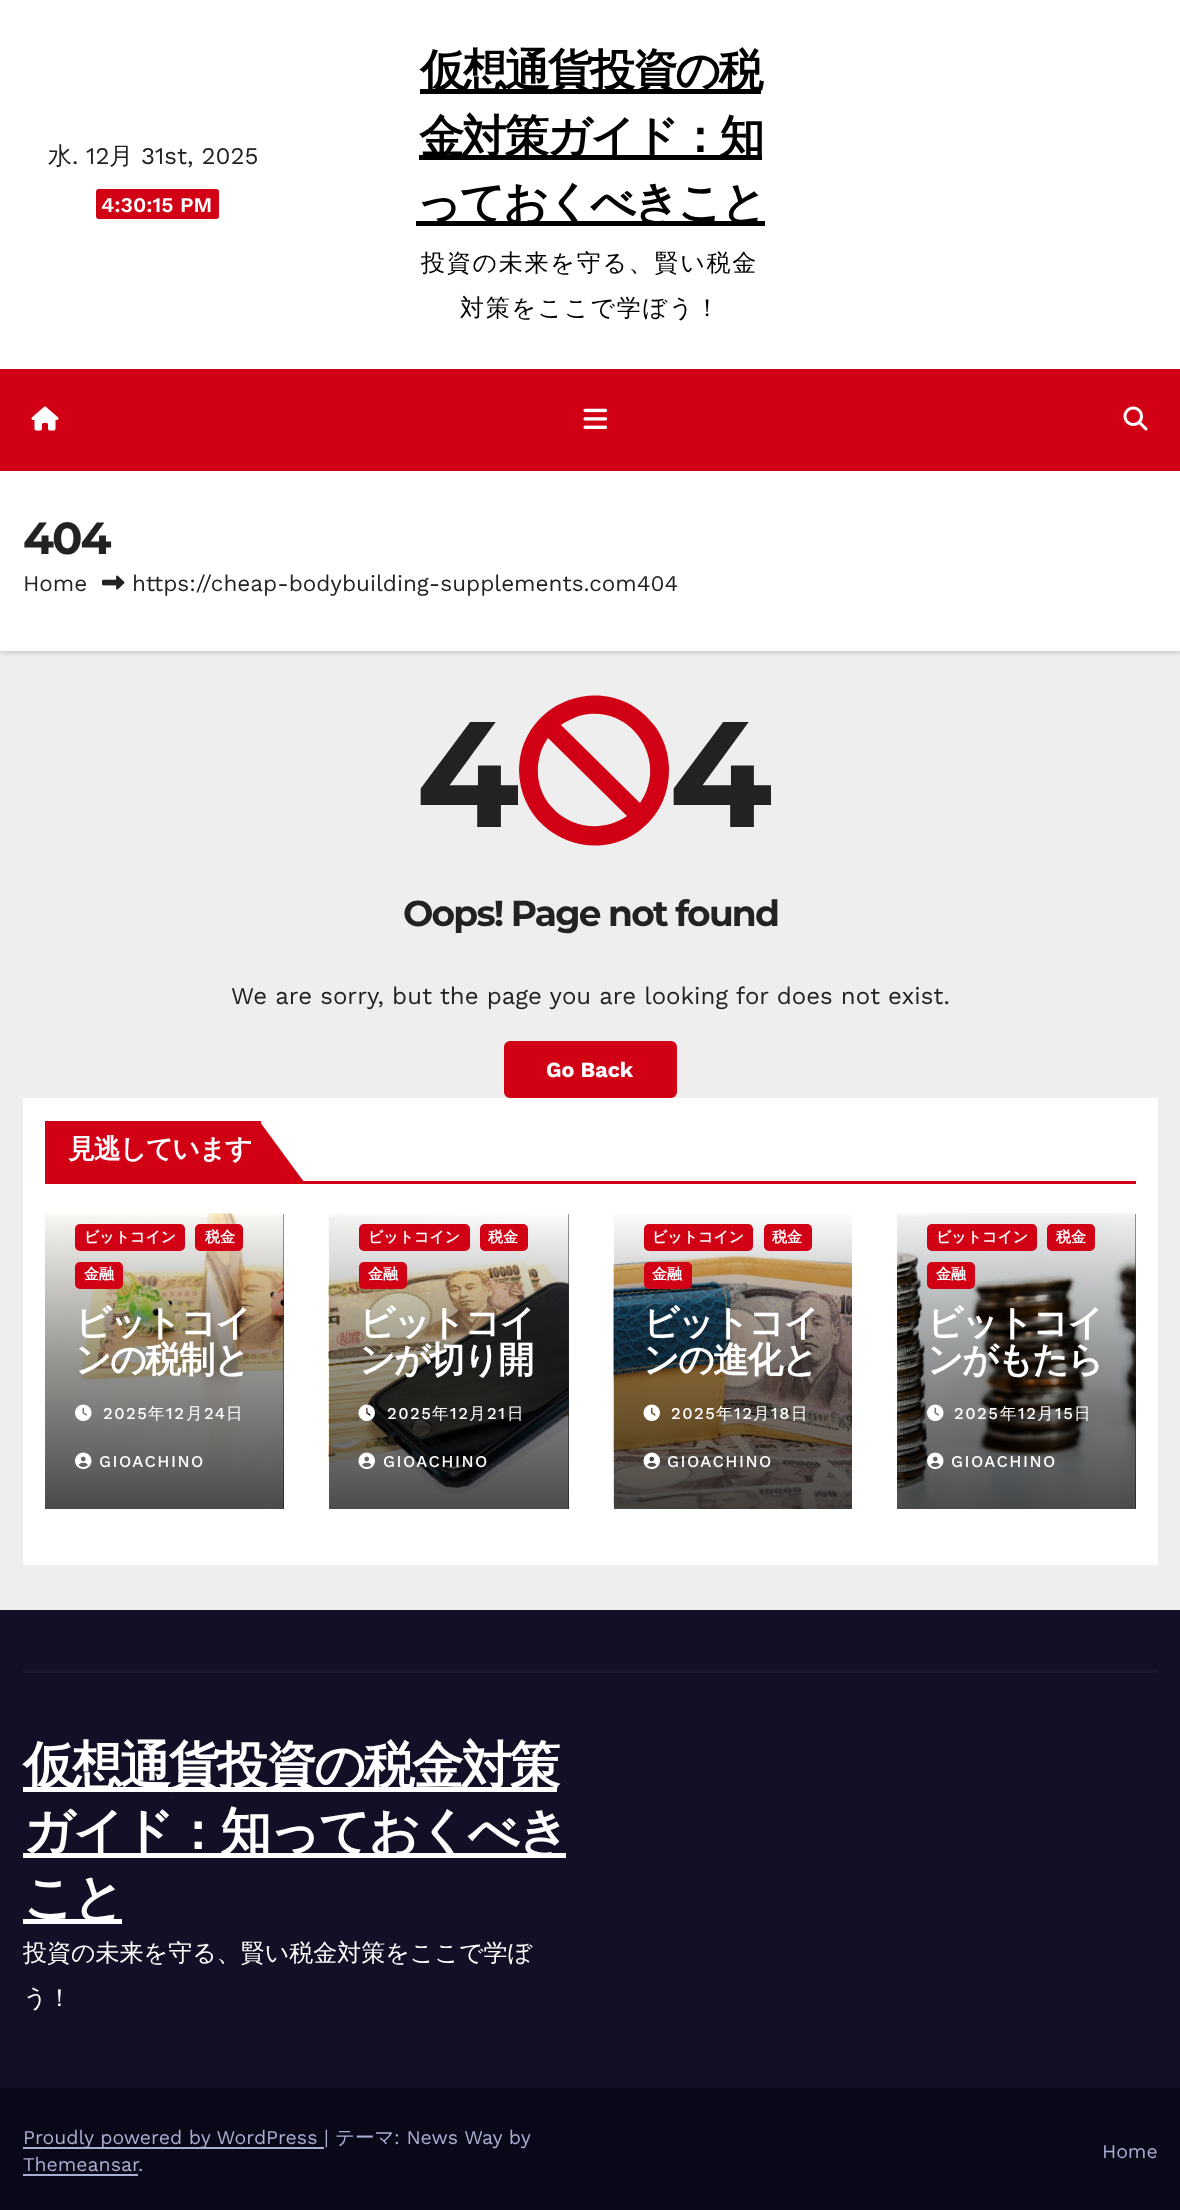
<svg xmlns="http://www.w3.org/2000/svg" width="1180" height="2210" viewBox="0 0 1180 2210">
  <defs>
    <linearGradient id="g1" gradientUnits="userSpaceOnUse" x1="164" y1="1209" x2="164" y2="1509"><stop offset="0" stop-color="#000" stop-opacity="0"/><stop offset="0.5" stop-color="#000" stop-opacity="0.4"/><stop offset="1" stop-color="#000" stop-opacity="0.7"/></linearGradient>
    <linearGradient id="g2" gradientUnits="userSpaceOnUse" x1="449" y1="1209" x2="449" y2="1509"><stop offset="0" stop-color="#000" stop-opacity="0"/><stop offset="0.5" stop-color="#000" stop-opacity="0.4"/><stop offset="1" stop-color="#000" stop-opacity="0.7"/></linearGradient>
    <linearGradient id="g3" gradientUnits="userSpaceOnUse" x1="1016" y1="1209" x2="1016" y2="1509"><stop offset="0" stop-color="#000" stop-opacity="0"/><stop offset="0.5" stop-color="#000" stop-opacity="0.4"/><stop offset="1" stop-color="#000" stop-opacity="0.7"/></linearGradient>
  </defs>
  <rect width="100%" height="100%" fill="#eee"/>
  <path d="M0 0h1180v369H0z" fill="#fff"/>
  <rect x="96" y="189" width="123" height="30" rx="3" fill="#d10014"/>
  <path d="M420 89h341v5H420z" fill="#000"/>
  <path d="M419 155h343v5H419z" fill="#000"/>
  <path d="M416 221h349v5H416z" fill="#000"/>
  <path d="M0 473h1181v180H0z" fill="#00000026" filter="blur(2px)"/>
  <path d="M0 369h1180v102H0z" fill="#d10014"/>
  <image x="31" y="406" width="28" height="25" href="img/1.png"/>
  <image x="583" y="408" width="25" height="21" href="img/2.png"/>
  <image x="1123" y="406" width="25" height="25" href="img/3.png"/>
  <path d="M0 471h1180v180H0z" fill="#fff"/>
  <image x="102" y="575" width="23" height="15" href="img/4.png"/>
  <path d="M627 816L548 738C542 746 539 756 538 766C534 813 588 843 627 816ZM640 803C667 764 637 710 589 714C579 715 570 719 561 725ZM519 770C520 699 610 668 654 725C664 738 669 754 669 770C669 787 664 803 654 816C610 873 520 842 519 770Z" fill="#d10014"/>
  <rect x="505.5" y="1042.5" width="170" height="54" rx="4.5" fill="#d10014" stroke="#d10014" stroke-width="3"/>
  <path d="M23 1098h1135v467H23z" fill="#fff"/>
  <path d="M45 1181h1091v3H45z" fill="#d10014"/>
  <path d="M45 1121h216v60H45z" fill="#d10014"/>
  <path d="M260 1122V1182H304Z" fill="#d10014"/>
  <path d="M283 1214h1v295H283z" fill="#333"/>
  <image x="45" y="1213" width="239" height="296" href="img/5.png"/>
  <path d="M45 1217h239v292H45z" fill="url(#g1)"/>
  <rect x="75" y="1224" width="110" height="27" rx="5" fill="#d10014"/>
  <rect x="195" y="1224" width="48" height="27" rx="5" fill="#d10014"/>
  <rect x="75" y="1262" width="48" height="27" rx="5" fill="#d10014"/>
  <image x="75" y="1404" width="17" height="17" href="img/6.png"/>
  <image x="75" y="1452" width="17" height="18" href="img/7.png"/>
  <path d="M568 1214h1v295H568z" fill="#333"/>
  <image x="328" y="1213" width="241" height="296" href="img/8.png"/>
  <path d="M329 1217h240v292H329z" fill="url(#g2)"/>
  <rect x="359" y="1224" width="111" height="27" rx="5" fill="#d10014"/>
  <rect x="480" y="1224" width="48" height="27" rx="5" fill="#d10014"/>
  <rect x="359" y="1262" width="48" height="27" rx="5" fill="#d10014"/>
  <image x="358" y="1404" width="17" height="18" href="img/9.png"/>
  <image x="358" y="1452" width="17" height="18" href="img/10.png"/>
  <image x="613" y="1214" width="239" height="295" href="img/11.png"/>
  <rect x="644" y="1224" width="109" height="27" rx="5" fill="#d10014"/>
  <rect x="764" y="1224" width="48" height="27" rx="5" fill="#d10014"/>
  <rect x="644" y="1262" width="48" height="27" rx="5" fill="#d10014"/>
  <image x="643" y="1404" width="17" height="18" href="img/12.png"/>
  <image x="643" y="1452" width="17" height="18" href="img/13.png"/>
  <path d="M1135 1214h1v295H1135z" fill="#333"/>
  <image x="897" y="1213" width="239" height="296" href="img/14.png"/>
  <path d="M897 1217h239v292H897z" fill="url(#g3)"/>
  <rect x="927" y="1224" width="110" height="27" rx="5" fill="#d10014"/>
  <rect x="1047" y="1224" width="48" height="27" rx="5" fill="#d10014"/>
  <rect x="927" y="1262" width="48" height="27" rx="5" fill="#d10014"/>
  <image x="927" y="1404" width="17" height="17" href="img/15.png"/>
  <image x="927" y="1452" width="17" height="18" href="img/16.png"/>
  <path d="M0 1610h1180v478H0z" fill="#121026"/>
  <path d="M23 1670h1135v3H23z" fill="#1a182e"/>
  <path d="M23 1787h534v5H23z" fill="#fff"/>
  <path d="M23 1853h543v5H23z" fill="#fff"/>
  <path d="M23 1919h99v5H23z" fill="#fff"/>
  <path d="M0 2088h1180v122H0z" fill="#090818"/>
  <path d="M23 2147h301v2H23z" fill="#aaaed1"/>
  <path d="M23 2174h115v2H23z" fill="#aaaed1"/>
  <text x="48" y="164" font-family="WenQuanYi Zen Hei" font-size="24" font-weight="500" fill="#222">水</text>
  <text x="72" y="164" font-family="Work Sans" font-size="24" fill="#222">. 12</text>
  <text x="109" y="164" font-family="WenQuanYi Zen Hei" font-size="24" font-weight="500" fill="#222">月</text>
  <text x="141" y="164" font-family="Work Sans" font-size="24" fill="#222">31st, 2025</text>
  <text x="101" y="212" font-family="Work Sans" font-size="21" font-weight="600" fill="#fff">4:30:15 PM</text>
  <g font-family="WenQuanYi Zen Hei" font-size="45" font-weight="bold" letter-spacing="-2.5" fill="#000">
    <text x="420" y="86">仮想通貨投資の税</text>
    <text x="419" y="152">金対策ガイド：知</text>
    <text x="416" y="218">っておくべきこと</text>
  </g>
  <g font-family="WenQuanYi Zen Hei" font-size="24" font-weight="500" letter-spacing="1.75" fill="#000">
    <text x="421" y="271">投資の未来を守る、賢い税金</text>
    <text x="460" y="316">対策をここで学ぼう！</text>
  </g>
  <text x="23" y="554" font-family="Montserrat" font-size="45" font-weight="bold" letter-spacing="-2" fill="#222">404</text>
  <g font-family="Work Sans" font-size="22.5" fill="#222">
    <text x="23" y="591">Home</text>
    <text x="132" y="591">https://cheap-bodybuilding-supplements.com404</text>
  </g>
  <g font-family="Montserrat" font-size="150" font-weight="bold" letter-spacing="-8" fill="#222">
    <text x="416" y="827">4</text>
    <text x="669" y="827">4</text>
  </g>
  <text x="403" y="926" font-family="Montserrat" font-size="36" font-weight="bold" letter-spacing="-1.8" fill="#222">Oops! Page not found</text>
  <text x="231" y="1004" font-family="Work Sans" font-size="24" fill="#222">We are sorry, but the page you are looking for does not exist.</text>
  <text x="546" y="1077" font-family="Work Sans" font-size="21.5" font-weight="bold" fill="#fff">Go Back</text>
  <text x="68" y="1158" font-family="WenQuanYi Zen Hei" font-size="27" font-weight="bold" letter-spacing="-1.25" fill="#fff">見逃しています</text>
  <g font-family="WenQuanYi Zen Hei" font-size="15" font-weight="bold" fill="#fff">
    <text x="84" y="1242">ビットコイン</text>
    <text x="205" y="1242">税金</text>
    <text x="84" y="1279">金融</text>
  </g>
  <g font-family="WenQuanYi Zen Hei" font-size="36" font-weight="bold" letter-spacing="-1.8" fill="#fff">
    <text x="75" y="1335">ビットコイ</text>
    <text x="75" y="1372">ンの税制と</text>
  </g>
  <text x="103" y="1419" font-family="Work Sans" font-size="16.5" font-weight="500" letter-spacing="1.5" fill="#fff">2025</text>
  <text x="148" y="1419" font-family="WenQuanYi Zen Hei" font-size="16.5" font-weight="500" letter-spacing="1.5" fill="#fff">年</text>
  <text x="166" y="1419" font-family="Work Sans" font-size="16.5" font-weight="500" letter-spacing="1.5" fill="#fff">12</text>
  <text x="186" y="1419" font-family="WenQuanYi Zen Hei" font-size="16.5" font-weight="500" letter-spacing="1.5" fill="#fff">月</text>
  <text x="204" y="1419" font-family="Work Sans" font-size="16.5" font-weight="500" letter-spacing="1.5" fill="#fff">24</text>
  <text x="226" y="1419" font-family="WenQuanYi Zen Hei" font-size="16.5" font-weight="500" letter-spacing="1.5" fill="#fff">日</text>
  <text x="99" y="1467" font-family="Work Sans" font-size="16.5" font-weight="500" letter-spacing="1.5" fill="#fff">GIOACHINO</text>
  <g font-family="WenQuanYi Zen Hei" font-size="15" font-weight="bold" fill="#fff">
    <text x="368" y="1242">ビットコイン</text>
    <text x="488" y="1242">税金</text>
    <text x="368" y="1279">金融</text>
  </g>
  <g font-family="WenQuanYi Zen Hei" font-size="36" font-weight="bold" letter-spacing="-1.8" fill="#fff">
    <text x="359" y="1335">ビットコイ</text>
    <text x="359" y="1372">ンが切り開</text>
  </g>
  <text x="387" y="1419" font-family="Work Sans" font-size="16.5" font-weight="500" letter-spacing="1.5" fill="#fff">2025</text>
  <text x="432" y="1419" font-family="WenQuanYi Zen Hei" font-size="16.5" font-weight="500" letter-spacing="1.5" fill="#fff">年</text>
  <text x="450" y="1419" font-family="Work Sans" font-size="16.5" font-weight="500" letter-spacing="1.5" fill="#fff">12</text>
  <text x="469" y="1419" font-family="WenQuanYi Zen Hei" font-size="16.5" font-weight="500" letter-spacing="1.5" fill="#fff">月</text>
  <text x="487" y="1419" font-family="Work Sans" font-size="16.5" font-weight="500" letter-spacing="1.5" fill="#fff">21</text>
  <text x="507" y="1419" font-family="WenQuanYi Zen Hei" font-size="16.5" font-weight="500" letter-spacing="1.5" fill="#fff">日</text>
  <text x="383" y="1467" font-family="Work Sans" font-size="16.5" font-weight="500" letter-spacing="1.5" fill="#fff">GIOACHINO</text>
  <g font-family="WenQuanYi Zen Hei" font-size="15" font-weight="bold" fill="#fff">
    <text x="652" y="1242">ビットコイン</text>
    <text x="772" y="1242">税金</text>
    <text x="652" y="1279">金融</text>
  </g>
  <g font-family="WenQuanYi Zen Hei" font-size="36" font-weight="bold" letter-spacing="-1.8" fill="#fff">
    <text x="643" y="1335">ビットコイ</text>
    <text x="643" y="1372">ンの進化と</text>
  </g>
  <text x="671" y="1419" font-family="Work Sans" font-size="16.5" font-weight="500" letter-spacing="1.5" fill="#fff">2025</text>
  <text x="716" y="1419" font-family="WenQuanYi Zen Hei" font-size="16.5" font-weight="500" letter-spacing="1.5" fill="#fff">年</text>
  <text x="734" y="1419" font-family="Work Sans" font-size="16.5" font-weight="500" letter-spacing="1.5" fill="#fff">12</text>
  <text x="753" y="1419" font-family="WenQuanYi Zen Hei" font-size="16.5" font-weight="500" letter-spacing="1.5" fill="#fff">月</text>
  <text x="771" y="1419" font-family="Work Sans" font-size="16.5" font-weight="500" letter-spacing="1.5" fill="#fff">18</text>
  <text x="791" y="1419" font-family="WenQuanYi Zen Hei" font-size="16.5" font-weight="500" letter-spacing="1.5" fill="#fff">日</text>
  <text x="667" y="1467" font-family="Work Sans" font-size="16.5" font-weight="500" letter-spacing="1.5" fill="#fff">GIOACHINO</text>
  <g font-family="WenQuanYi Zen Hei" font-size="15" font-weight="bold" fill="#fff">
    <text x="936" y="1242">ビットコイン</text>
    <text x="1056" y="1242">税金</text>
    <text x="936" y="1279">金融</text>
  </g>
  <g font-family="WenQuanYi Zen Hei" font-size="36" font-weight="bold" letter-spacing="-1.8" fill="#fff">
    <text x="927" y="1335">ビットコイ</text>
    <text x="927" y="1372">ンがもたら</text>
  </g>
  <text x="954" y="1419" font-family="Work Sans" font-size="16.5" font-weight="500" letter-spacing="1.5" fill="#fff">2025</text>
  <text x="1000" y="1419" font-family="WenQuanYi Zen Hei" font-size="16.5" font-weight="500" letter-spacing="1.5" fill="#fff">年</text>
  <text x="1018" y="1419" font-family="Work Sans" font-size="16.5" font-weight="500" letter-spacing="1.5" fill="#fff">12</text>
  <text x="1037" y="1419" font-family="WenQuanYi Zen Hei" font-size="16.5" font-weight="500" letter-spacing="1.5" fill="#fff">月</text>
  <text x="1055" y="1419" font-family="Work Sans" font-size="16.5" font-weight="500" letter-spacing="1.5" fill="#fff">15</text>
  <text x="1074" y="1419" font-family="WenQuanYi Zen Hei" font-size="16.5" font-weight="500" letter-spacing="1.5" fill="#fff">日</text>
  <text x="951" y="1467" font-family="Work Sans" font-size="16.5" font-weight="500" letter-spacing="1.5" fill="#fff">GIOACHINO</text>
  <g font-family="WenQuanYi Zen Hei" font-size="51" font-weight="bold" letter-spacing="-2.5" fill="#fff">
    <text x="23" y="1783">仮想通貨投資の税金対策</text>
    <text x="23" y="1849">ガイド：知っておくべき</text>
    <text x="23" y="1915">こと</text>
  </g>
  <g font-family="WenQuanYi Zen Hei" font-size="24" font-weight="500" fill="#fff">
    <text x="23" y="1961">投資の未来を守る、賢い税金対策をここで学ぼ</text>
    <text x="23" y="2006">う！</text>
  </g>
  <text x="23" y="2144" font-family="Work Sans" font-size="19.5" fill="#aaaed1">Proudly powered by WordPress |</text>
  <text x="335" y="2144" font-family="WenQuanYi Zen Hei" font-size="19.5" font-weight="500" fill="#aaaed1">テーマ</text>
  <g font-family="Work Sans" font-size="19.5" fill="#aaaed1">
    <text x="394" y="2144">: News Way by</text>
    <text x="23" y="2171">Themeansar</text>
    <text x="138" y="2171">.</text>
    <text x="1102" y="2158">Home</text>
  </g>
</svg>
